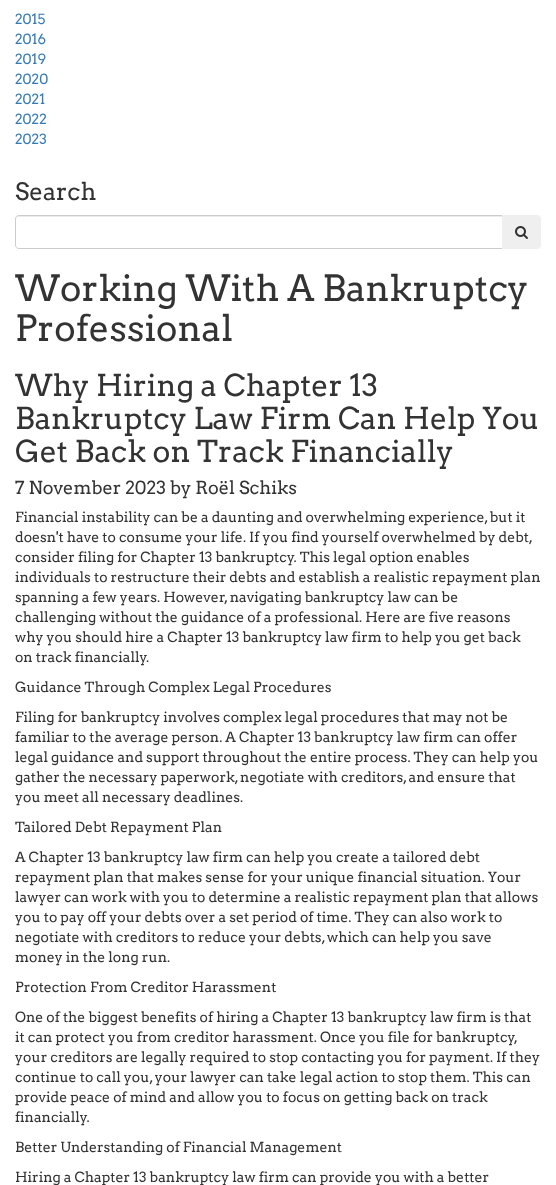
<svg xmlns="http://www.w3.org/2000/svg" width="556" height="1185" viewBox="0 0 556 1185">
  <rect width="100%" height="100%" fill="#fff"/>
  <path d="M19 217H502V216H19C17 216 16 218 16 220C16 218 17 217 19 217Z" fill="#ececec"/>
  <path d="M19 215.5H502.5V248.5H19C17 248.5 15.5 247 15.5 245V219C15.5 217 17 215.5 19 215.5Z" fill="none" stroke="#ccc"/>
  <path d="M502 215H537C539 215 541 217 541 219V245C541 247 539 249 537 249H502Z" fill="#efefef"/>
  <image x="515" y="226" width="13" height="13" href="img/1.png"/>
  <g font-family="Arvo" font-size="14" fill="#337ab7">
    <text x="15" y="24">2015</text>
    <text x="15" y="44">2016</text>
    <text x="15" y="64">2019</text>
    <text x="15" y="84">2020</text>
    <text x="15" y="104">2021</text>
    <text x="15" y="124">2022</text>
    <text x="15" y="144">2023</text>
  </g>
  <text x="15" y="200" font-family="Arvo" font-size="24" fill="#333">Search</text>
  <g font-family="Arvo" font-size="36" fill="#333">
    <text x="15" y="301">Working With A Bankruptcy</text>
    <text x="15" y="341">Professional</text>
  </g>
  <g font-family="Arvo" font-size="30" fill="#333">
    <text x="15" y="396">Why Hiring a Chapter 13</text>
    <text x="15" y="429">Bankruptcy Law Firm Can Help You</text>
    <text x="15" y="462">Get Back on Track Financially</text>
  </g>
  <text x="15" y="494" font-family="Arvo" font-size="18" fill="#333">7 November 2023 by Roël Schiks</text>
  <g font-family="Arvo" font-size="14" fill="#333">
    <text x="15" y="522">Financial instability can be a daunting and overwhelming experience, but it</text>
    <text x="15" y="542">doesn't have to consume your life. If you find yourself overwhelmed by debt,</text>
    <text x="15" y="562">consider filing for Chapter 13 bankruptcy. This legal option enables</text>
    <text x="15" y="582">individuals to restructure their debts and establish a realistic repayment plan</text>
    <text x="15" y="602">spanning a few years. However, navigating bankruptcy law can be</text>
    <text x="15" y="622">challenging without the guidance of a professional. Here are five reasons</text>
    <text x="15" y="642">why you should hire a Chapter 13 bankruptcy law firm to help you get back</text>
    <text x="15" y="662">on track financially.</text>
    <text x="15" y="692">Guidance Through Complex Legal Procedures</text>
    <text x="15" y="722">Filing for bankruptcy involves complex legal procedures that may not be</text>
    <text x="15" y="742">familiar to the average person. A Chapter 13 bankruptcy law firm can offer</text>
    <text x="15" y="762">legal guidance and support throughout the entire process. They can help you</text>
    <text x="15" y="782">gather the necessary paperwork, negotiate with creditors, and ensure that</text>
    <text x="15" y="802">you meet all necessary deadlines.</text>
    <text x="15" y="832">Tailored Debt Repayment Plan</text>
    <text x="15" y="862">A Chapter 13 bankruptcy law firm can help you create a tailored debt</text>
    <text x="15" y="882">repayment plan that makes sense for your unique financial situation. Your</text>
    <text x="15" y="902">lawyer can work with you to determine a realistic repayment plan that allows</text>
    <text x="15" y="922">you to pay off your debts over a set period of time. They can also work to</text>
    <text x="15" y="942">negotiate with creditors to reduce your debts, which can help you save</text>
    <text x="15" y="962">money in the long run.</text>
    <text x="15" y="992">Protection From Creditor Harassment</text>
    <text x="15" y="1022">One of the biggest benefits of hiring a Chapter 13 bankruptcy law firm is that</text>
    <text x="15" y="1042">it can protect you from creditor harassment. Once you file for bankruptcy,</text>
    <text x="15" y="1062">your creditors are legally required to stop contacting you for payment. If they</text>
    <text x="15" y="1082">continue to call you, your lawyer can take legal action to stop them. This can</text>
    <text x="15" y="1102">provide peace of mind and allow you to focus on getting back on track</text>
    <text x="15" y="1122">financially.</text>
    <text x="15" y="1152">Better Understanding of Financial Management</text>
    <text x="15" y="1182">Hiring a Chapter 13 bankruptcy law firm can provide you with a better</text>
  </g>
</svg>
